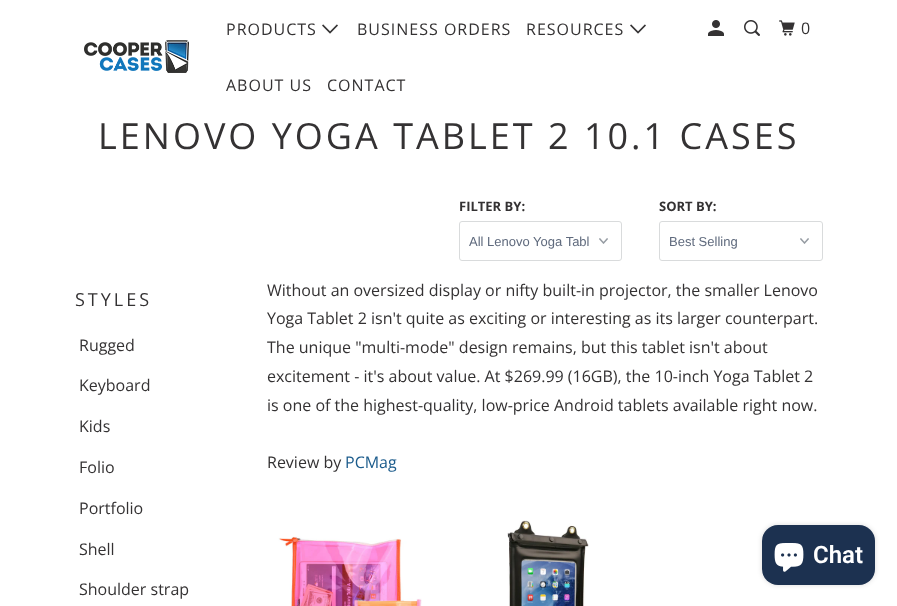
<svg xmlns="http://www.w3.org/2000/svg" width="897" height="606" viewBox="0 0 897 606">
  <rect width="100%" height="100%" fill="#fff"/>
  <image x="84" y="40" width="105" height="33" href="img/1.png"/>
  <image x="322" y="24" width="16" height="10" href="img/2.png"/>
  <image x="630" y="24" width="16" height="10" href="img/2.png"/>
  <image x="708" y="20" width="16" height="16" href="img/3.png"/>
  <image x="744" y="20" width="16" height="16" href="img/4.png"/>
  <image x="779" y="20" width="16" height="16" href="img/5.png"/>
  <image x="599" y="238" width="9" height="6" href="img/6.png"/>
  <rect x="459.5" y="221.5" width="162" height="39" rx="2.5" fill="none" stroke="#d9dbdc"/>
  <image x="800" y="238" width="9" height="6" href="img/6.png"/>
  <rect x="659.5" y="221.5" width="163" height="39" rx="2.5" fill="none" stroke="#d9dbdc"/>
  <image x="278" y="536" width="144" height="70" href="img/7.png"/>
  <image x="507" y="520" width="82" height="86" href="img/8.png"/>
  <rect x="762" y="525" width="113" height="60" rx="16" fill="#00000026" filter="blur(2.5px)"/>
  <rect x="762" y="525" width="113" height="60" rx="16" fill="#1c3150"/>
  <image x="774" y="543" width="30" height="29" href="img/9.png"/>
  <g font-family="Open Sans" font-size="16" letter-spacing="1" fill="#343233">
    <text x="226" y="35">PRODUCTS</text>
    <text x="357" y="35">BUSINESS ORDERS</text>
    <text x="526" y="35">RESOURCES</text>
    <text x="226" y="91">ABOUT US</text>
    <text x="327" y="91">CONTACT</text>
    <text x="801" y="34">0</text>
  </g>
  <text x="98" y="149" font-family="Open Sans" font-size="36" letter-spacing="3" fill="#343233">LENOVO YOGA TABLET 2 10.1 CASES</text>
  <text x="459" y="211" font-family="Open Sans" font-size="13" font-weight="bold" fill="#343233">FILTER BY:</text>
  <text x="469" y="246" font-family="Liberation Sans" font-size="13" fill="#5f6a7d">All Lenovo Yoga Tabl</text>
  <text x="659" y="211" font-family="Open Sans" font-size="13" font-weight="bold" fill="#343233">SORT BY:</text>
  <text x="669" y="246" font-family="Liberation Sans" font-size="13" fill="#5f6a7d">Best Selling</text>
  <text x="75" y="306" font-family="Open Sans" font-size="18" letter-spacing="3" fill="#343233">STYLES</text>
  <g font-family="Open Sans" font-size="16" fill="#343233">
    <text x="79" y="351">Rugged</text>
    <text x="79" y="391">Keyboard</text>
    <text x="79" y="432">Kids</text>
    <text x="79" y="473">Folio</text>
    <text x="79" y="514">Portfolio</text>
    <text x="79" y="555">Shell</text>
    <text x="79" y="595">Shoulder strap</text>
    <text x="267" y="296">Without an oversized display or nifty built-in projector, the smaller Lenovo</text>
    <text x="267" y="324">Yoga Tablet 2 isn't quite as exciting or interesting as its larger counterpart.</text>
    <text x="267" y="353">The unique "multi-mode" design remains, but this tablet isn't about</text>
    <text x="267" y="382">excitement - it's about value. At $269.99 (16GB), the 10-inch Yoga Tablet 2</text>
    <text x="267" y="411">is one of the highest-quality, low-price Android tablets available right now.</text>
    <text x="267" y="468">Review by</text>
  </g>
  <text x="345" y="468" font-family="Open Sans" font-size="16" fill="#1c5c8c">PCMag</text>
  <text x="813" y="563" font-family="Roboto" font-size="24" font-weight="600" fill="#fff">Chat</text>
</svg>
